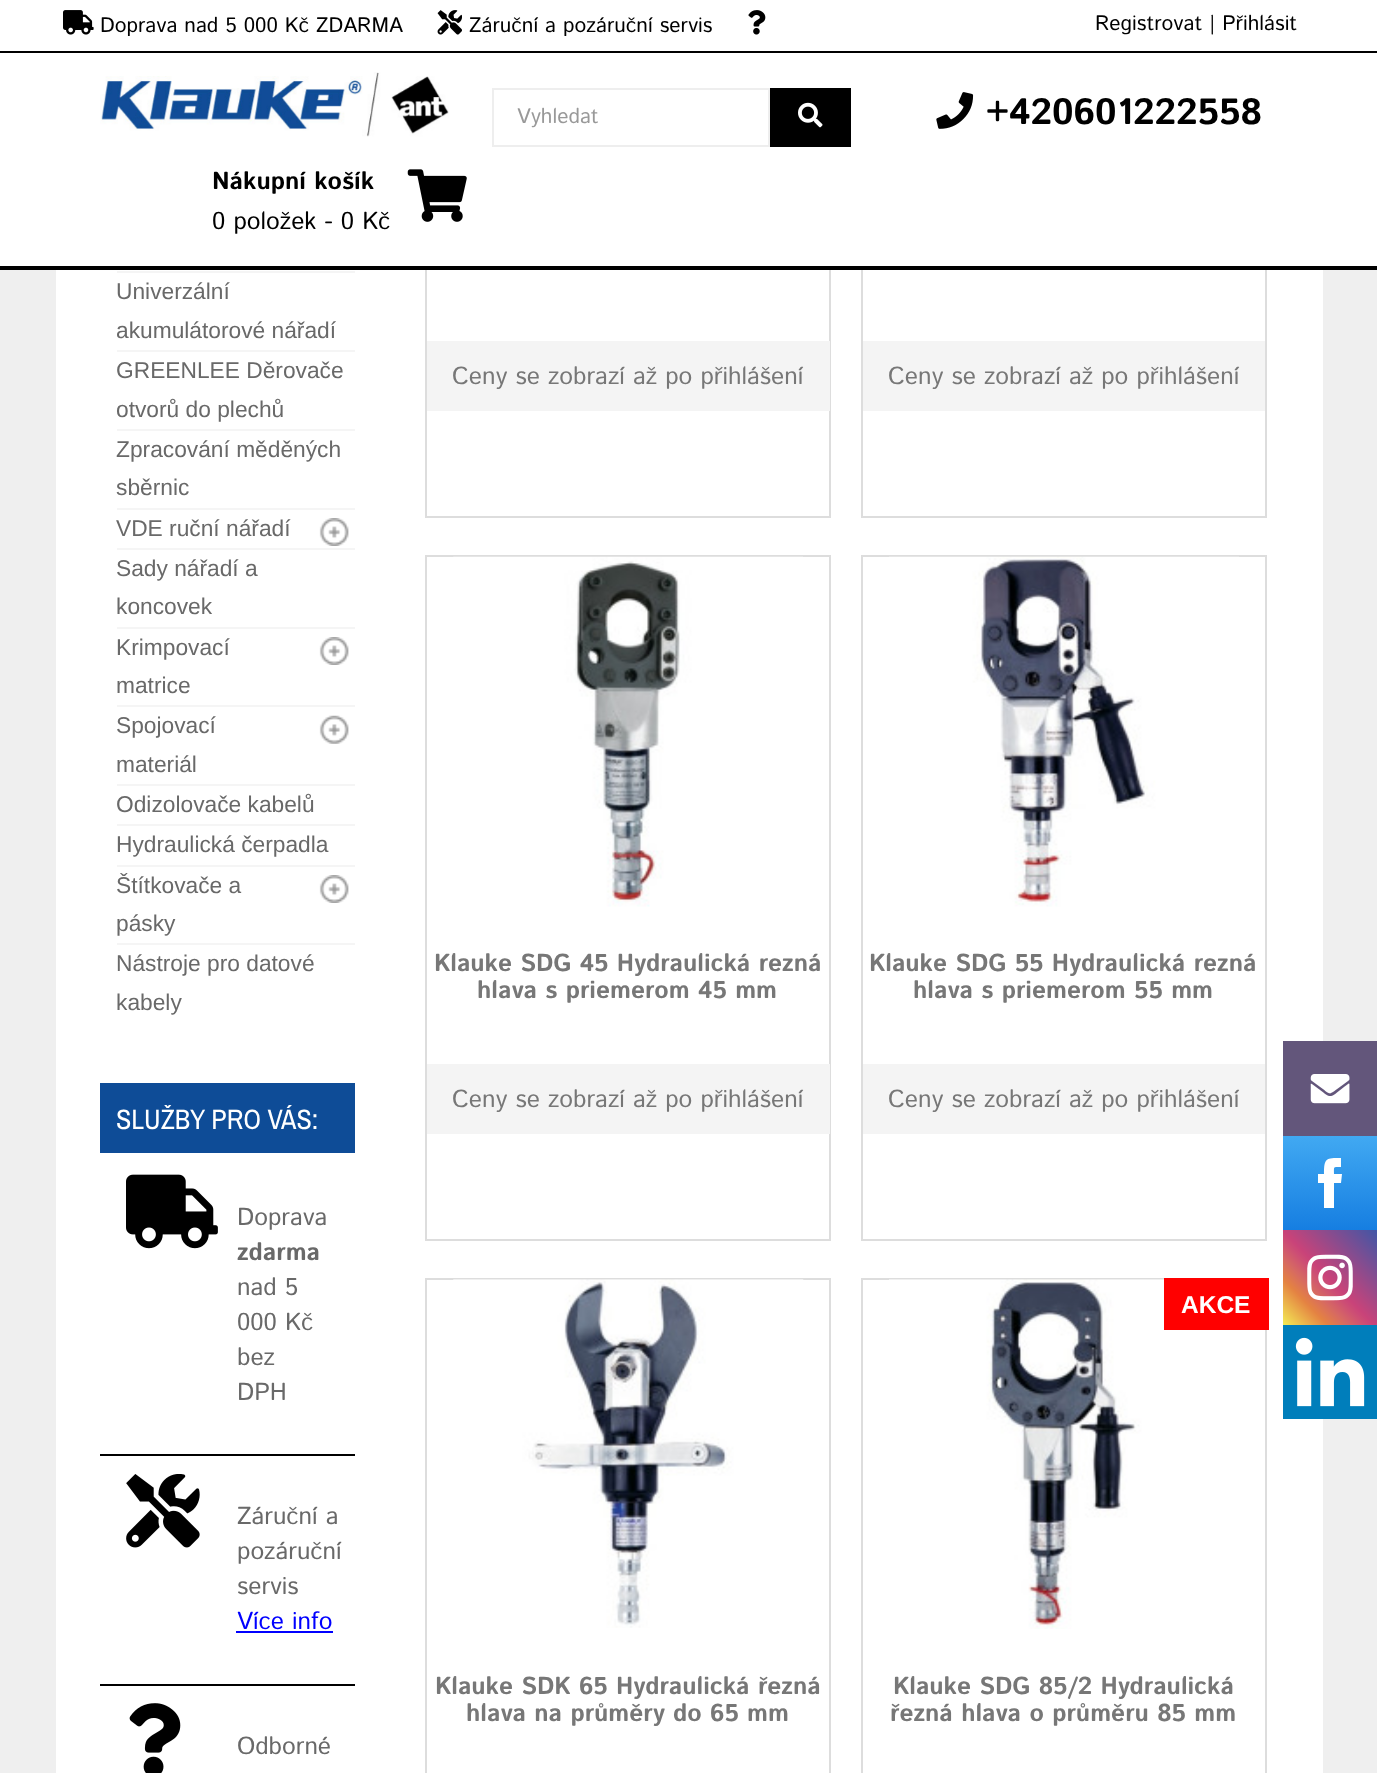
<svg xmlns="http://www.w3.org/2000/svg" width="1377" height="1773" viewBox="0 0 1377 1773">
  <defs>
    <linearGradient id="g1" gradientUnits="userSpaceOnUse" x1="1330" y1="1230" x2="1330" y2="1136"><stop offset="0" stop-color="#167ee1"/><stop offset="1" stop-color="#41a9f2"/></linearGradient>
  </defs>
  <rect width="100%" height="100%" fill="#efefef"/>
  <path d="M56 270h1267v1503H56z" fill="#fff"/>
  <path d="M426 -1h404v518H426z" fill="none" stroke="#ddd" stroke-width="2"/>
  <path d="M862 -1h404v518H862z" fill="none" stroke="#ddd" stroke-width="2"/>
  <path d="M0 0h1377v51H0z" fill="#fff"/>
  <path d="M0 51h1377v2H0z" fill="#000"/>
  <image x="63" y="10" width="31" height="25" href="img/1.png"/>
  <image x="437" y="10" width="25" height="25" href="img/2.png"/>
  <image x="748" y="10" width="18" height="25" href="img/3.png"/>
  <path d="M0 53h1377v213H0z" fill="#fff"/>
  <path d="M0 266h1377v4H0z" fill="#000"/>
  <image x="100" y="72" width="349" height="65" href="img/4.png"/>
  <path d="M493 89h276v57H493z" fill="none" stroke="#eee" stroke-width="2"/>
  <path d="M770 88h81v59H770z" fill="#000"/>
  <image x="798" y="102" width="25" height="26" href="img/5.png"/>
  <image x="936" y="92" width="38" height="37" href="img/6.png"/>
  <image x="407" y="169" width="60" height="53" href="img/7.png"/>
  <path d="M117 271h238v2H117z" fill="#f5f5f5"/>
  <path d="M117 350h238v2H117z" fill="#f5f5f5"/>
  <path d="M117 429h238v2H117z" fill="#f5f5f5"/>
  <path d="M117 508h238v2H117z" fill="#f5f5f5"/>
  <image x="319" y="518" width="30" height="28" href="img/8.png"/>
  <path d="M117 548h238v2H117z" fill="#f5f5f5"/>
  <path d="M117 627h238v2H117z" fill="#f5f5f5"/>
  <image x="319" y="637" width="30" height="28" href="img/8.png"/>
  <path d="M117 705h238v2H117z" fill="#f5f5f5"/>
  <image x="319" y="715" width="30" height="29" href="img/9.png"/>
  <path d="M117 784h238v2H117z" fill="#f5f5f5"/>
  <path d="M117 824h238v2H117z" fill="#f5f5f5"/>
  <path d="M117 865h238v2H117z" fill="#f5f5f5"/>
  <image x="319" y="875" width="30" height="28" href="img/8.png"/>
  <path d="M117 943h238v2H117z" fill="#f5f5f5"/>
  <path d="M100 1083h255v70H100z" fill="#0e4c97"/>
  <image x="126" y="1174" width="92" height="75" href="img/10.png"/>
  <path d="M100 1454h255v2H100z" fill="#000"/>
  <image x="126" y="1474" width="74" height="74" href="img/11.png"/>
  <path d="M236 1631h97v2H236z" fill="#00f"/>
  <path d="M100 1684h255v2H100z" fill="#000"/>
  <image x="129" y="1703" width="52" height="70" href="img/12.png"/>
  <path d="M427 341h403v70H427z" fill="#f4f4f4"/>
  <path d="M863 341h402v70H863z" fill="#f4f4f4"/>
  <path d="M426 556h404v684H426z" fill="none" stroke="#ddd" stroke-width="2"/>
  <image x="453" y="556" width="350" height="351" href="img/13.png"/>
  <path d="M427 1064h403v70H427z" fill="#f4f4f4"/>
  <path d="M862 556h404v684H862z" fill="none" stroke="#ddd" stroke-width="2"/>
  <image x="889" y="556" width="350" height="351" href="img/14.png"/>
  <path d="M863 1064h402v70H863z" fill="#f4f4f4"/>
  <path d="M426 1279h404v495H426z" fill="none" stroke="#ddd" stroke-width="2"/>
  <image x="453" y="1279" width="351" height="349" href="img/15.png"/>
  <path d="M862 1279h404v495H862z" fill="none" stroke="#ddd" stroke-width="2"/>
  <image x="889" y="1279" width="350" height="350" href="img/16.png"/>
  <path d="M1164 1278h105v52H1164z" fill="#f00"/>
  <image x="1283" y="1041" width="94" height="95" href="img/17.png"/>
  <path d="M1283 1136h94v94H1283z" fill="url(#g1)"/>
  <path d="M1324 1208H1334V1183H1341L1342 1174H1334C1334 1166 1333 1167 1341 1167V1158C1326 1158 1324 1158 1324 1174H1318V1183H1324Z" fill="#fff"/>
  <image x="1283" y="1230" width="94" height="95" href="img/18.png"/>
  <image x="1283" y="1325" width="94" height="94" href="img/19.png"/>
  <g font-family="Istok Web" font-size="21" fill="#000">
    <text x="100" y="32">Doprava nad 5 000 Kč ZDARMA</text>
    <text x="469" y="32">Záruční a pozáruční servis</text>
    <text x="1095" y="30">Registrovat | Přihlásit</text>
  </g>
  <text x="517" y="123" font-family="Istok Web" font-size="21" fill="#999">Vyhledat</text>
  <text x="986" y="124" font-family="Istok Web" font-size="36.75" font-weight="bold" fill="#000">+420601222558</text>
  <text x="212" y="189" font-family="Istok Web" font-size="24.5" font-weight="bold" fill="#000">Nákupní košík</text>
  <text x="212" y="229" font-family="Istok Web" font-size="24.5" fill="#000">0 položek - 0 Kč</text>
  <g font-family="Liberation Sans" font-size="22.75" fill="#696969">
    <text x="116" y="299">Univerzální</text>
    <text x="116" y="338">akumulátorové nářadí</text>
    <text x="116" y="378">GREENLEE Děrovače</text>
    <text x="116" y="417">otvorů do plechů</text>
    <text x="116" y="457">Zpracování měděných</text>
    <text x="116" y="495">sběrnic</text>
    <text x="116" y="536">VDE ruční nářadí</text>
    <text x="116" y="576">Sady nářadí a</text>
    <text x="116" y="614">koncovek</text>
    <text x="116" y="655">Krimpovací</text>
    <text x="116" y="693">matrice</text>
    <text x="116" y="733">Spojovací</text>
    <text x="116" y="772">materiál</text>
    <text x="116" y="812">Odizolovače kabelů</text>
    <text x="116" y="852">Hydraulická čerpadla</text>
    <text x="116" y="893">Štítkovače a</text>
    <text x="116" y="931">pásky</text>
    <text x="116" y="971">Nástroje pro datové</text>
    <text x="116" y="1010">kabely</text>
  </g>
  <text x="116" y="1129" font-family="Archivo Narrow" font-size="28" fill="#fff">SLUŽBY PRO VÁS:</text>
  <text x="237" y="1225" font-family="Istok Web" font-size="24.5" fill="#696969">Doprava</text>
  <text x="237" y="1260" font-family="Istok Web" font-size="24.5" font-weight="bold" fill="#696969">zdarma</text>
  <g font-family="Istok Web" font-size="24.5" fill="#696969">
    <text x="237" y="1295">nad 5</text>
    <text x="237" y="1330">000 Kč</text>
    <text x="237" y="1365">bez</text>
    <text x="237" y="1400">DPH</text>
    <text x="237" y="1524">Záruční a</text>
    <text x="237" y="1559">pozáruční</text>
    <text x="237" y="1594">servis</text>
  </g>
  <text x="237" y="1629" font-family="Istok Web" font-size="24.5" fill="#00f">Více info</text>
  <text x="237" y="1754" font-family="Istok Web" font-size="24.5" fill="#696969">Odborné</text>
  <g font-family="Istok Web" font-size="24.5" fill="#777">
    <text x="452" y="384">Ceny se zobrazí až po přihlášení</text>
    <text x="888" y="384">Ceny se zobrazí až po přihlášení</text>
  </g>
  <g font-family="Istok Web" font-size="24.5" font-weight="bold" fill="#777">
    <text x="434" y="971">Klauke SDG 45 Hydraulická rezná</text>
    <text x="477" y="998">hlava s priemerom 45 mm</text>
  </g>
  <text x="452" y="1107" font-family="Istok Web" font-size="24.5" fill="#777">Ceny se zobrazí až po přihlášení</text>
  <g font-family="Istok Web" font-size="24.5" font-weight="bold" fill="#777">
    <text x="869" y="971">Klauke SDG 55 Hydraulická rezná</text>
    <text x="913" y="998">hlava s priemerom 55 mm</text>
  </g>
  <text x="888" y="1107" font-family="Istok Web" font-size="24.5" fill="#777">Ceny se zobrazí až po přihlášení</text>
  <g font-family="Istok Web" font-size="24.5" font-weight="bold" fill="#777">
    <text x="435" y="1694">Klauke SDK 65 Hydraulická řezná</text>
    <text x="466" y="1721">hlava na průměry do 65 mm</text>
  </g>
  <text x="1181" y="1313" font-family="Liberation Sans" font-size="24.5" font-weight="bold" fill="#fff">AKCE</text>
  <g font-family="Istok Web" font-size="24.5" font-weight="bold" fill="#777">
    <text x="893" y="1694">Klauke SDG 85/2 Hydraulická</text>
    <text x="890" y="1721">řezná hlava o průměru 85 mm</text>
  </g>
</svg>
